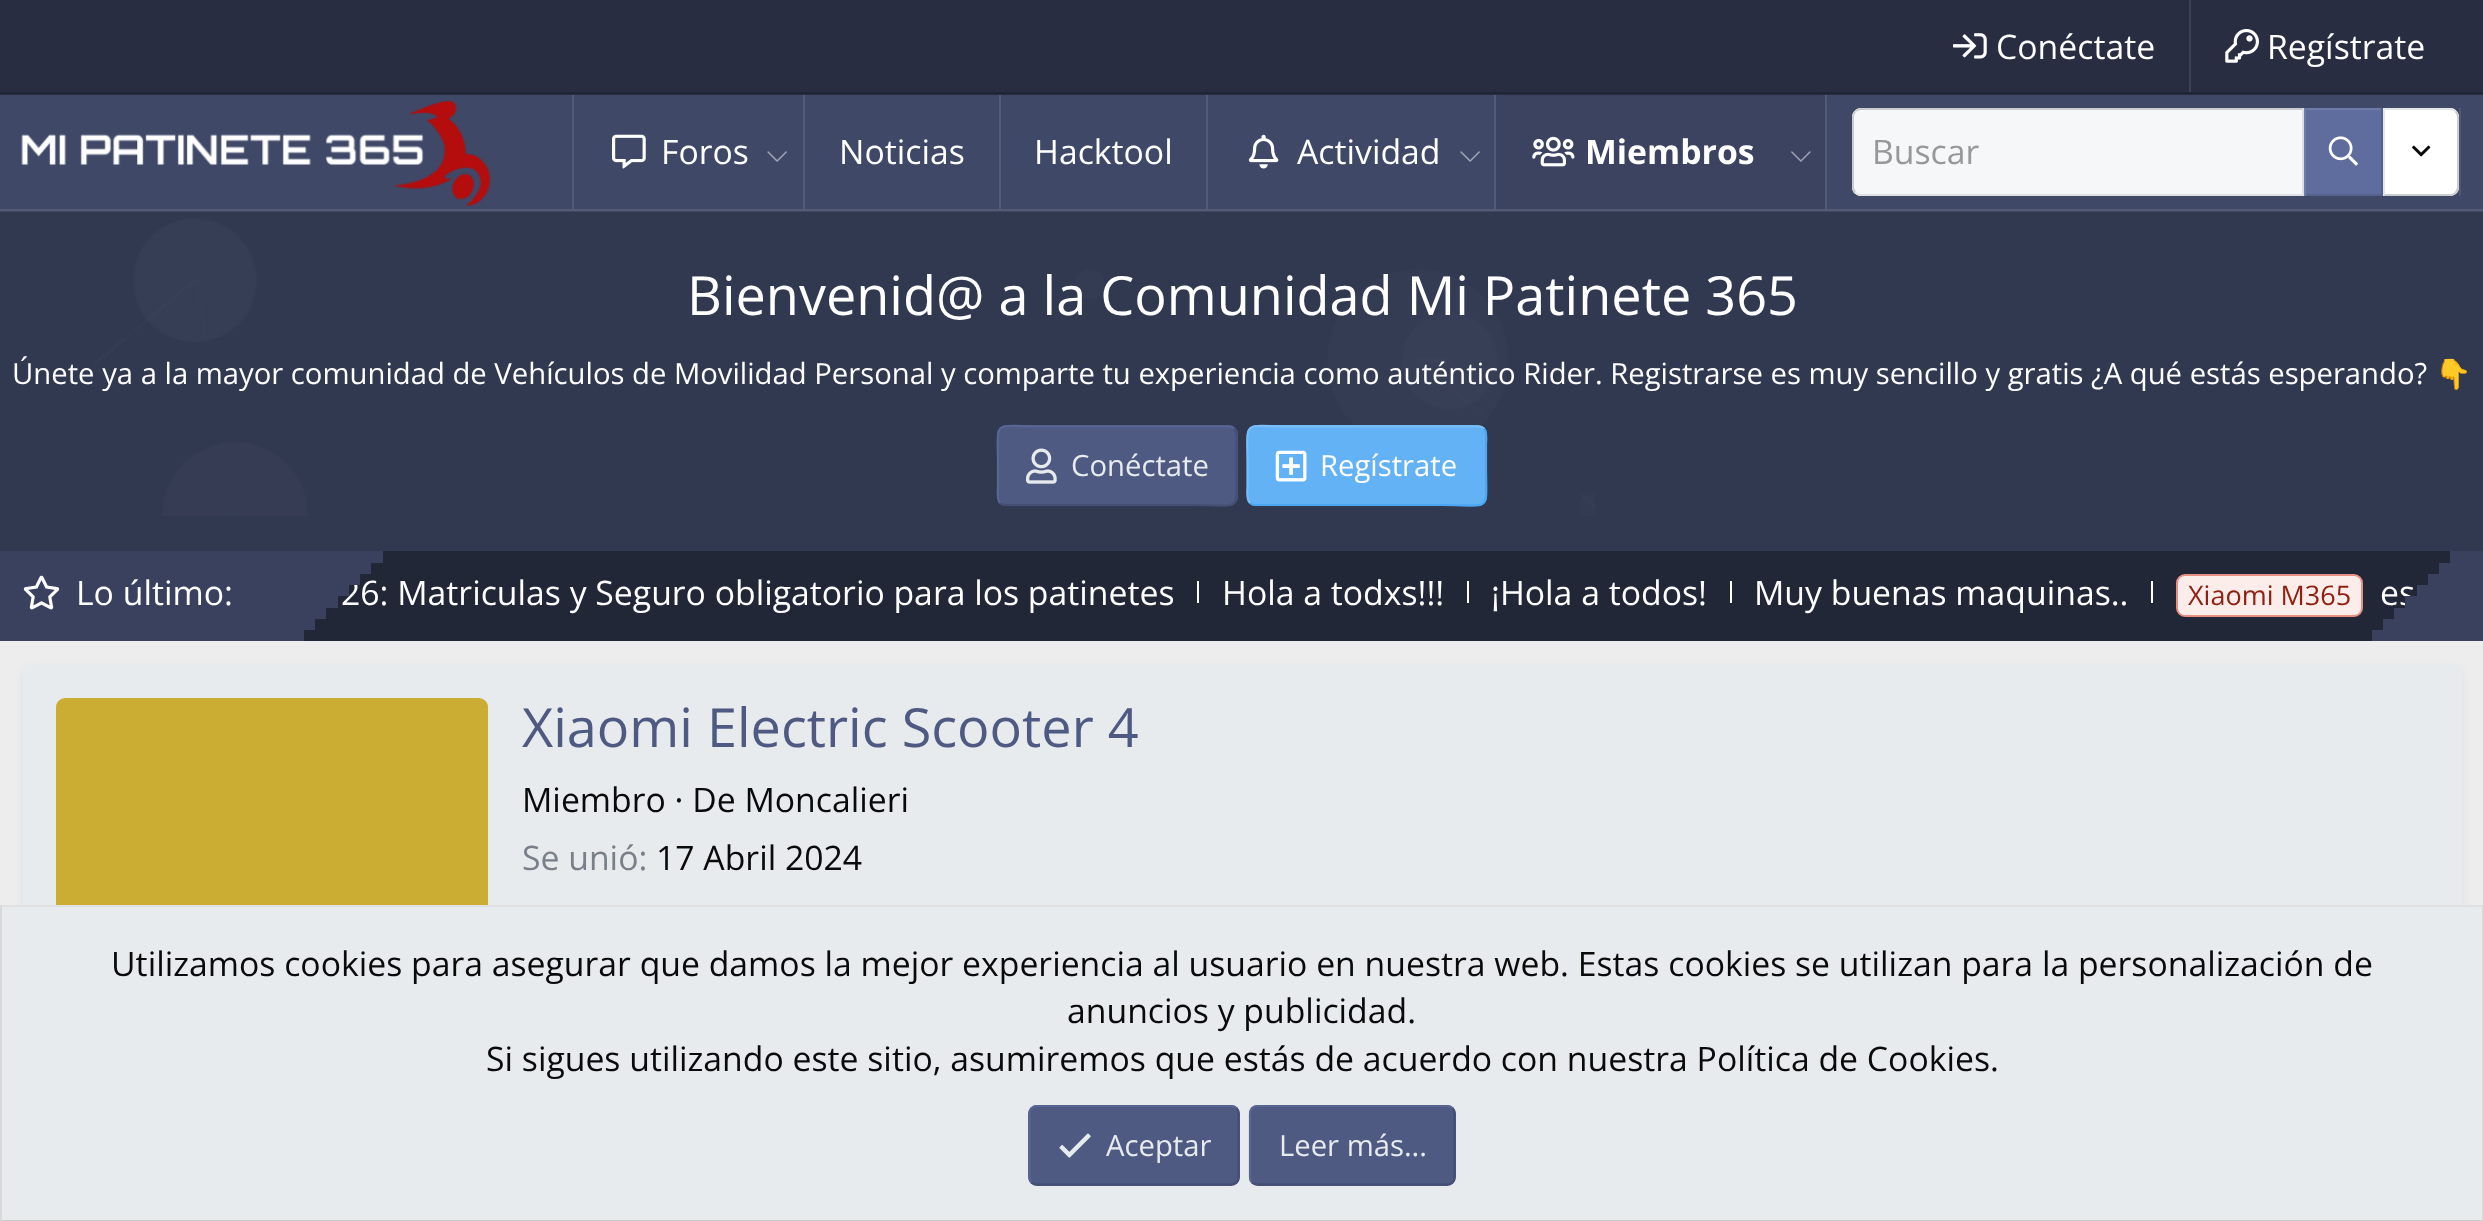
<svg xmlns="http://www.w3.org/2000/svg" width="2483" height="1221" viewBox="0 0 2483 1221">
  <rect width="100%" height="100%" fill="#ededed"/>
  <path d="M0 0h2483v95H0z" fill="#282d41"/>
  <path d="M0 92h2483v2H0z" fill="#202534"/>
  <image x="1953" y="33" width="34" height="26" href="img/1.png"/>
  <path d="M2189 0h2v92H2189z" fill="#3d4152"/>
  <image x="2225" y="29" width="34" height="34" href="img/2.png"/>
  <path d="M0 95h2483v117H0z" fill="#3f4867"/>
  <path d="M0 209h2483v2H0z" fill="#525a76"/>
  <image x="21" y="100" width="470" height="107" href="img/3.png"/>
  <path d="M572 95h2v114H572z" fill="#525a76"/>
  <image x="612" y="134" width="34" height="35" href="img/4.png"/>
  <image x="767" y="151" width="20" height="11" href="img/5.png"/>
  <path d="M803 95h2v114H803z" fill="#525a76"/>
  <path d="M999 95h2v114H999z" fill="#525a76"/>
  <path d="M1206 95h2v114H1206z" fill="#525a76"/>
  <image x="1248" y="134" width="31" height="35" href="img/6.png"/>
  <image x="1460" y="151" width="20" height="11" href="img/5.png"/>
  <path d="M1825 95h2v114H1825z" fill="#525a76"/>
  <path d="M1494 95h2v114H1494z" fill="#525a76"/>
  <path d="M1501 95H1820C1823 95 1825 97 1825 100V209H1496V100C1496 97 1498 95 1501 95Z" fill="#3b4360"/>
  <image x="1532" y="136" width="43" height="31" href="img/7.png"/>
  <image x="1791" y="151" width="20" height="11" href="img/8.png"/>
  <path d="M1852 108h610v88H1852z" fill="#3d4664"/>
  <path d="M2459 108h2v88H2459z" fill="#505974"/>
  <path d="M1861 108H2304V196H1861C1856 196 1852 192 1852 187V117C1852 112 1856 108 1861 108Z" fill="#f6f7f8"/>
  <path d="M1861 108C1858 108 1856 109 1855 111L1856 112C1857 111 1859 110 1861 110H2302L2304 108Z" fill="#ccc"/>
  <path d="M2304 108L2302 110V194L2304 196Z" fill="#e0e0e0"/>
  <path d="M2304 196H1859C1857 195 1856 194 1854 193L1856 192C1857 193 1859 194 1861 194H2302Z" fill="#e0e0e0"/>
  <path d="M1855 111C1853 112 1852 115 1852 117V187C1852 189 1853 192 1854 193L1856 192C1855 190 1854 188 1854 187V117C1854 115 1855 113 1856 112Z" fill="#ccc"/>
  <path d="M2306 110h75v84H2306z" fill="#5f6d9e"/>
  <path d="M2304 108h79v2H2304z" fill="#6e7ba8"/>
  <path d="M2381 108h2v88H2381z" fill="#55628e"/>
  <path d="M2304 194h79v2H2304z" fill="#55628e"/>
  <path d="M2304 108h2v88H2304z" fill="#6e7ba8"/>
  <image x="2328" y="136" width="30" height="30" href="img/9.png"/>
  <path d="M2383 108H2450C2455 108 2459 112 2459 117V187C2459 192 2455 196 2450 196H2383Z" fill="#fff"/>
  <path d="M2383 108L2385 110H2450C2452 110 2454 111 2455 112L2456 111C2455 109 2453 108 2450 108Z" fill="#e6e6e6"/>
  <path d="M2456 111C2458 112 2459 115 2459 117V187C2459 189 2458 192 2457 193L2455 192C2456 190 2457 188 2457 187V117C2457 115 2456 113 2455 112Z" fill="#ccc"/>
  <path d="M2383 196L2385 194H2450C2452 194 2454 193 2455 192L2457 193C2455 194 2454 195 2452 196Z" fill="#ccc"/>
  <path d="M2383 108V196L2385 194V110Z" fill="#e6e6e6"/>
  <image x="2412" y="145" width="19" height="12" href="img/10.png"/>
  <path d="M0 212h2483v339H0z" fill="#313951"/>
  <image x="95" y="219" width="1500" height="297" href="img/11.png"/>
  <rect x="997" y="425" width="241" height="81" rx="9" fill="#4f5a83"/>
  <path d="M1234 428.5C1238 432.5 1236.5 440.5 1236.5 445V466C1236.5 514 1243.5 505 1191.5 505H1006C1003.5 505 1001.5 504.5 1000 503" fill="none" stroke="#454f73" stroke-width="2.2"/>
  <path d="M1000 503C996.5 499 998 491 998 487V466C998 417.5 991 426.5 1043 426.5H1228.5C1230.5 426.5 1232.5 427 1234 428.5" fill="none" stroke="#596593" stroke-width="2.2"/>
  <image x="1026" y="448" width="31" height="36" href="img/12.png"/>
  <rect x="1247" y="425" width="240" height="81" rx="9" fill="#63b2f5"/>
  <path d="M1484 428.5C1487.5 432.5 1486 440.5 1486 445V466C1486 514 1493 505 1441 505H1255.5C1253.5 505 1251.5 504.5 1250 503" fill="none" stroke="#4ba6f3" stroke-width="2.2"/>
  <path d="M1250 503C1246 499 1247.5 491 1247.5 487V466C1247.5 417.5 1240.5 426.5 1292.5 426.5H1478C1480.5 426.5 1482.5 427 1484 428.5" fill="none" stroke="#7bbef7" stroke-width="2.2"/>
  <image x="1275" y="450" width="32" height="32" href="img/13.png"/>
  <path d="M304 551h2146v90H304z" fill="#222738"/>
  <path d="M0 551h383v12H0z" fill="#39415e"/>
  <path d="M0 563h371v11H0z" fill="#39415e"/>
  <path d="M0 596h338v12H0z" fill="#39415e"/>
  <path d="M0 608h326v11H0z" fill="#39415e"/>
  <path d="M0 619h315v11H0z" fill="#39415e"/>
  <path d="M0 630h304v11H0z" fill="#39415e"/>
  <path d="M2450 551h33v12H2450z" fill="#39415e"/>
  <path d="M2439 563h44v11H2439z" fill="#39415e"/>
  <path d="M2428 574h55v11H2428z" fill="#39415e"/>
  <path d="M2417 585h66v11H2417z" fill="#39415e"/>
  <path d="M2394 608h89v11H2394z" fill="#39415e"/>
  <path d="M2383 619h100v11H2383z" fill="#39415e"/>
  <path d="M2372 630h111v11H2372z" fill="#39415e"/>
  <path d="M1197 581h2v22H1197z" fill="#fff"/>
  <path d="M1467 581h2v22H1467z" fill="#fff"/>
  <path d="M1730 581h2v22H1730z" fill="#fff"/>
  <path d="M2151 581h2v22H2151z" fill="#fff"/>
  <rect x="2177" y="575" width="185" height="41" rx="8" fill="#fcedea" stroke="#e88f82" stroke-width="2"/>
  <rect x="23" y="668" width="2439" height="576" rx="9" fill="#6c6f731a" filter="blur(4.5px)"/>
  <path d="M30 664H2455C2459 664 2462 667 2462 671V977H23V671C23 667 26 664 30 664Z" fill="#e8ebed"/>
  <rect x="56" y="698" width="432" height="432" rx="9" fill="#ccad33"/>
  <path d="M2 907h2480v313H2z" fill="#e8ebed"/>
  <path d="M0 905h2483v2H0z" fill="#e0e0e0"/>
  <path d="M2482 905h1v316H2482z" fill="#d9d9d9"/>
  <path d="M0 1220h2483v1H0z" fill="#ccc"/>
  <path d="M0 905h2v316H0z" fill="#d9d9d9"/>
  <rect x="1028" y="1105" width="212" height="81" rx="9" fill="#4f5a83"/>
  <path d="M1236.5 1108C1238 1109.5 1238.5 1111.5 1238.5 1114V1177C1238.5 1179 1238 1181 1236.5 1182.5C1235 1184 1233 1184.5 1231 1184.5H1037C1035 1184.5 1033 1184 1031.5 1182.5" fill="none" stroke="#454f73" stroke-width="2.2"/>
  <path d="M1031.5 1182.5C1030 1181 1029.5 1179 1029.5 1177V1114C1029.5 1111.5 1030 1109.5 1031.5 1108C1033 1106.5 1035 1106 1037 1106H1231C1233 1106 1235 1106.5 1236.5 1108" fill="none" stroke="#596593" stroke-width="2.2"/>
  <image x="1059" y="1133" width="32" height="25" href="img/15.png"/>
  <rect x="1249" y="1105" width="207" height="81" rx="9" fill="#4f5a83"/>
  <path d="M1452.5 1108C1454 1109.5 1454.5 1111.5 1454.5 1114V1177C1454.5 1179 1454 1181 1452.5 1182.5C1451 1184 1449 1184.5 1447 1184.5H1258C1255.5 1184.5 1253.5 1184 1252 1182.5" fill="none" stroke="#454f73" stroke-width="2.2"/>
  <path d="M1252 1182.5C1250.5 1181 1250 1179 1250 1177V1114C1250 1111.5 1250.5 1109.5 1252 1108C1253.5 1106.5 1255.5 1106 1258 1106H1447C1449 1106 1451 1106.5 1452.5 1108" fill="none" stroke="#596593" stroke-width="2.2"/>
  <g font-family="Open Sans" font-size="33.75" fill="#fff">
    <text x="1996" y="59">Conéctate</text>
    <text x="2267" y="59">Regístrate</text>
    <text x="661" y="164">Foros</text>
    <text x="839" y="164">Noticias</text>
    <text x="1034" y="164">Hacktool</text>
    <text x="1297" y="164">Actividad</text>
  </g>
  <text x="1585" y="164" font-family="Open Sans" font-size="33.75" font-weight="bold" fill="#fff">Miembros</text>
  <text x="1872" y="164" font-family="Open Sans" font-size="33.75" fill="#979899">Buscar</text>
  <text x="687" y="315" font-family="Open Sans" font-size="54" fill="#fff">Bienvenid@ a la Comunidad Mi Patinete 365</text>
  <text x="12" y="384" font-family="Open Sans" font-size="29.25" fill="#fff">Únete ya a la mayor comunidad de Vehículos de Movilidad Personal y comparte tu experiencia como auténtico Rider. Registrarse es muy sencillo y gratis ¿A qué estás esperando?</text>
  <text x="2435" y="384" font-family="Noto Color Emoji" font-size="29.25" fill="#fff">👇</text>
  <text x="1071" y="476" font-family="Open Sans" font-size="29.25" fill="#e8ebed">Conéctate</text>
  <text x="1320" y="476" font-family="Open Sans" font-size="29.25" fill="#fff">Regístrate</text>
  <text x="341" y="605" font-family="Open Sans" font-size="33.75" fill="#fff">26: Matriculas y Seguro obligatorio para los patinetes</text>
  <path d="M0 585h349v11H0z" fill="#39415e"/>
  <path d="M0 574h360v11H0z" fill="#39415e"/>
  <text x="76" y="605" font-family="Open Sans" font-size="33.75" fill="#fff">Lo último:</text>
  <image x="23" y="575" width="37" height="35" href="img/14.png"/>
  <g font-family="Open Sans" font-size="33.75" fill="#fff">
    <text x="1222" y="605">Hola a todxs!!!</text>
    <text x="1491" y="605">¡Hola a todos!</text>
    <text x="1754" y="605">Muy buenas maquinas..</text>
  </g>
  <text x="2188" y="605" font-family="Open Sans" font-size="27" fill="#8f2112">Xiaomi M365</text>
  <text x="2380" y="605" font-family="Open Sans" font-size="33.75" fill="#fff">es</text>
  <path d="M2405 596h78v12H2405z" fill="#39415e"/>
  <text x="522" y="747" font-family="Open Sans" font-size="54" fill="#4f5a83">Xiaomi Electric Scooter 4</text>
  <text x="522" y="812" font-family="Open Sans" font-size="33.75" fill="#090a0a">Miembro · De Moncalieri</text>
  <text x="522" y="870" font-family="Open Sans" font-size="33.75" fill="#79808a">Se unió:</text>
  <g font-family="Open Sans" font-size="33.75" fill="#090a0a">
    <text x="656" y="870">17 Abril 2024</text>
    <text x="111" y="976">Utilizamos cookies para asegurar que damos la mejor experiencia al usuario en nuestra web. Estas cookies se utilizan para la personalización de</text>
    <text x="1067" y="1023">anuncios y publicidad.</text>
    <text x="486" y="1071">Si sigues utilizando este sitio, asumiremos que estás de acuerdo con nuestra Política de Cookies.</text>
  </g>
  <g font-family="Open Sans" font-size="29.25" fill="#e8ebed">
    <text x="1106" y="1156">Aceptar</text>
    <text x="1279" y="1156">Leer más...</text>
  </g>
</svg>
